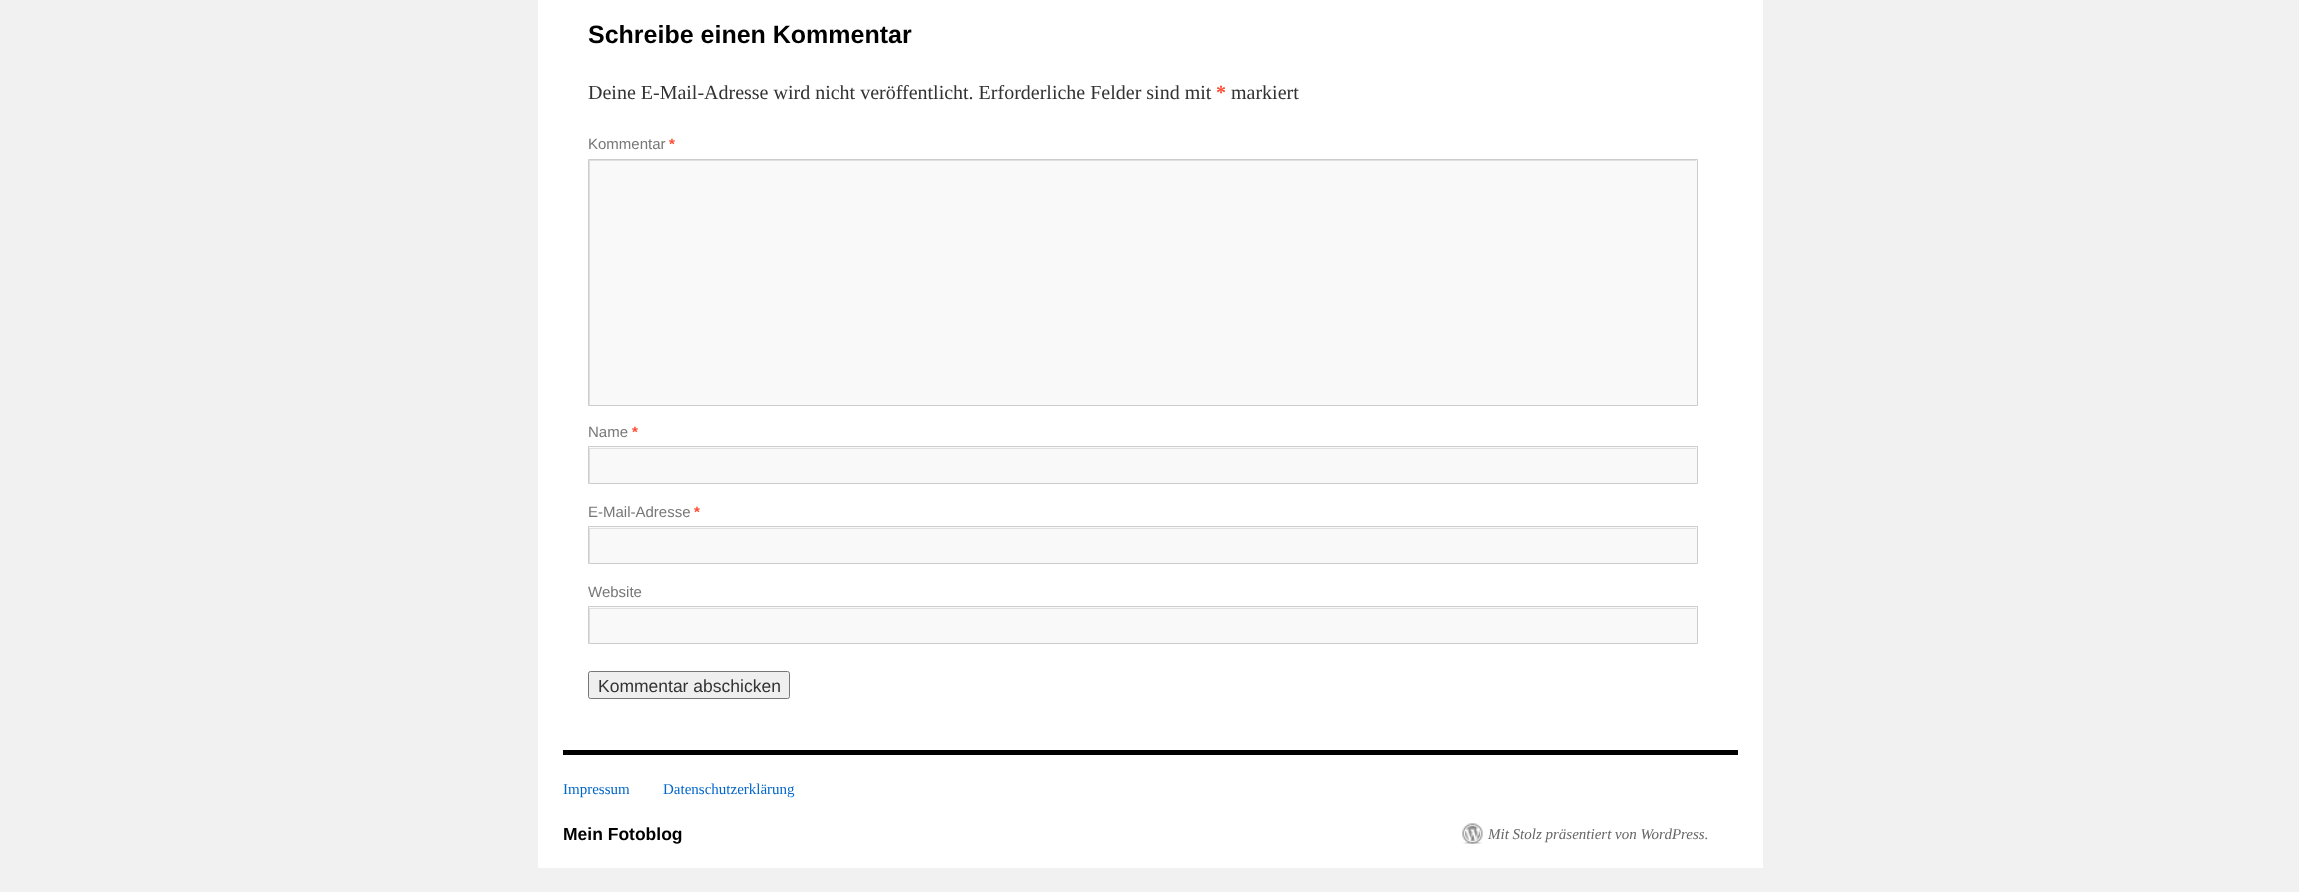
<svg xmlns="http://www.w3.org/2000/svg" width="2299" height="892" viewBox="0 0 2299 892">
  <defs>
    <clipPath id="clip1"><path d="M589 160h1107v245H589z"/></clipPath>
    <clipPath id="clip2"><path d="M589 448h1107v35H589z"/></clipPath>
    <clipPath id="clip3"><path d="M589 528h1107v35H589z"/></clipPath>
    <clipPath id="clip4"><path d="M589 608h1107v35H589z"/></clipPath>
  </defs>
  <rect width="100%" height="100%" fill="#f1f1f1"/>
  <path d="M538 0h1225v868H538z" fill="#fff"/>
  <path d="M590 160h1107v245H590z" fill="#f9f9f9"/>
  <g clip-path="url(#clip1)">
    <path d="M465 36H1820V529H465ZM590 161H1698V406H590Z" fill="#e0e0e0" fill-rule="evenodd"/>
  </g>
  <path d="M588.5 159.5h1109v246H588.5z" fill="none" stroke="#ccc"/>
  <path d="M589 447h1108v36H589z" fill="#f9f9f9"/>
  <g clip-path="url(#clip2)">
    <path d="M465 324H1820V606H465ZM590 449H1698V484H590Z" fill="#e0e0e0" fill-rule="evenodd"/>
  </g>
  <path d="M588.5 446.5h1109v37H588.5z" fill="none" stroke="#ccc"/>
  <path d="M589 527h1108v36H589z" fill="#f9f9f9"/>
  <g clip-path="url(#clip3)">
    <path d="M465 404H1820V686H465ZM590 529H1698V564H590Z" fill="#e0e0e0" fill-rule="evenodd"/>
  </g>
  <path d="M588.5 526.5h1109v37H588.5z" fill="none" stroke="#ccc"/>
  <path d="M589 607h1108v36H589z" fill="#f9f9f9"/>
  <g clip-path="url(#clip4)">
    <path d="M465 484H1820V766H465ZM590 609H1698V644H590Z" fill="#e0e0e0" fill-rule="evenodd"/>
  </g>
  <path d="M588.5 606.5h1109v37H588.5z" fill="none" stroke="#ccc"/>
  <rect x="588.5" y="671.5" width="201" height="27" rx="2" fill="#efefef" stroke="#767676"/>
  <path d="M563 750h1175v5H563z" fill="#000"/>
  <image x="1462" y="823" width="21" height="21" href="img/1.png"/>
  <text x="588" y="43" font-family="Liberation Sans" font-size="25" font-weight="bold" fill="#000">Schreibe einen Kommentar</text>
  <text x="588" y="99" font-family="Liberation Serif" font-size="20" fill="#333">Deine E-Mail-Adresse wird nicht veröffentlicht. Erforderliche Felder sind mit</text>
  <text x="1216" y="99" font-family="Liberation Serif" font-size="20" font-weight="bold" fill="#ff4b33">*</text>
  <text x="1231" y="99" font-family="Liberation Serif" font-size="20" fill="#333">markiert</text>
  <text x="588" y="149" font-family="Liberation Sans" font-size="15" fill="#777">Kommentar</text>
  <text x="669" y="149" font-family="Liberation Sans" font-size="15" font-weight="bold" fill="#ff4b33">*</text>
  <text x="588" y="437" font-family="Liberation Sans" font-size="15" fill="#777">Name</text>
  <text x="632" y="437" font-family="Liberation Sans" font-size="15" font-weight="bold" fill="#ff4b33">*</text>
  <text x="588" y="517" font-family="Liberation Sans" font-size="15" fill="#777">E-Mail-Adresse</text>
  <text x="694" y="517" font-family="Liberation Sans" font-size="15" font-weight="bold" fill="#ff4b33">*</text>
  <text x="588" y="597" font-family="Liberation Sans" font-size="15" fill="#777">Website</text>
  <text x="598" y="692" font-family="Liberation Sans" font-size="17.5" fill="#333">Kommentar abschicken</text>
  <g font-family="Liberation Serif" font-size="15" fill="#06c">
    <text x="563" y="794">Impressum</text>
    <text x="663" y="794">Datenschutzerklärung</text>
  </g>
  <text x="563" y="840" font-family="Liberation Sans" font-size="17.5" font-weight="bold" fill="#000">Mein Fotoblog</text>
  <text x="1488" y="839" font-family="Liberation Serif" font-size="15" font-style="italic" fill="#666">Mit Stolz präsentiert von WordPress.</text>
</svg>
